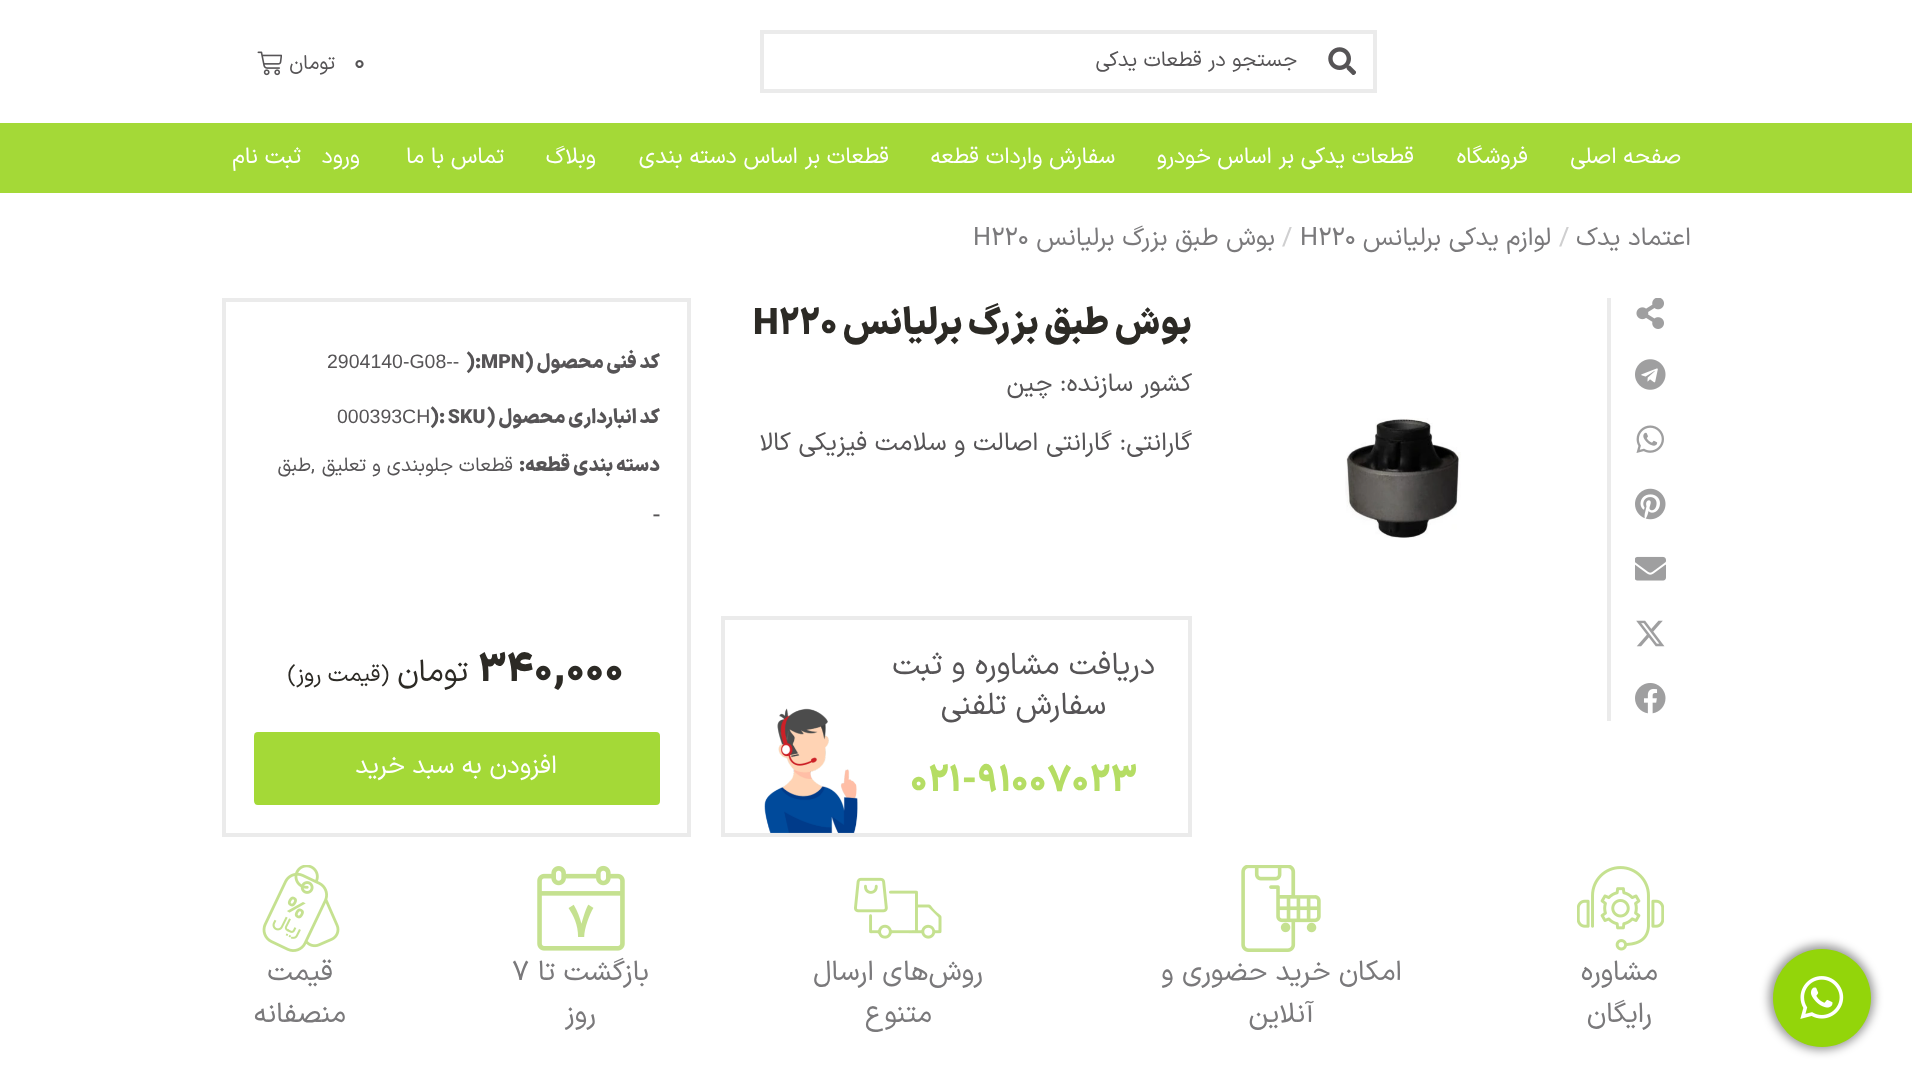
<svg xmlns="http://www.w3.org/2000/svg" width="1912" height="1078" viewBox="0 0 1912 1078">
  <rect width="100%" height="100%" fill="#fff"/>
  <path d="M762 32h613v59H762z" fill="none" stroke="#ebebeb" stroke-width="4"/>
  <image x="1328" y="47" width="28" height="28" href="img/1.png"/>
  <image x="257" y="51" width="25" height="25" href="img/2.png"/>
  <rect x="1769" y="945" width="105" height="105" rx="52.5" fill="#00000066" filter="blur(5px)"/>
  <circle cx="1822" cy="998" r="49" fill="#93d50a"/>
  <image x="1800" y="976" width="44" height="43" href="img/3.png"/>
  <path d="M0 123h1912v70H0z" fill="#a4d937"/>
  <path d="M1607 298h4v423H1607z" fill="#ebebeb"/>
  <image x="1636" y="298" width="28" height="31" href="img/4.png"/>
  <image x="1635" y="359" width="31" height="31" href="img/5.png"/>
  <image x="1636" y="425" width="28" height="28" href="img/6.png"/>
  <image x="1635" y="488" width="31" height="32" href="img/7.png"/>
  <image x="1635" y="556" width="31" height="25" href="img/8.png"/>
  <image x="1636" y="620" width="29" height="27" href="img/9.png"/>
  <image x="1635" y="683" width="31" height="31" href="img/10.png"/>
  <image x="1345" y="418" width="116" height="120" href="img/11.png"/>
  <path d="M723 618h467v217H723z" fill="none" stroke="#ebebeb" stroke-width="4"/>
  <image x="764" y="708" width="94" height="125" href="img/12.png"/>
  <path d="M224 300h465v535H224z" fill="none" stroke="#ebebeb" stroke-width="4"/>
  <rect x="256" y="734" width="402" height="69" rx="2" fill="#a4d937" stroke="#a4d937" stroke-width="4"/>
  <image x="1577" y="866" width="87" height="85" href="img/13.png"/>
  <image x="1241" y="865" width="80" height="87" href="img/14.png"/>
  <image x="854" y="877" width="88" height="62" href="img/15.png"/>
  <image x="537" y="865" width="88" height="86" href="img/16.png"/>
  <image x="262" y="865" width="78" height="87" href="img/17.png"/>
  <text x="1297" y="66" font-family="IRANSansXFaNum" font-size="21" direction="rtl" fill="#565456">جستجو در قطعات یدکی</text>
  <text x="354" y="69" font-family="IRANSansXFaNum" font-size="25.25" fill="#565456">0</text>
  <text x="335" y="69" font-family="IRANSansXFaNum" font-size="20" direction="rtl" fill="#565456">تومان</text>
  <g font-family="IRANSansXFaNum" font-size="22.4" direction="rtl" fill="#fff">
    <text x="1681" y="163">صفحه اصلی</text>
    <text x="1528" y="163">فروشگاه</text>
    <text x="1414" y="163">قطعات یدکی بر اساس خودرو</text>
    <text x="1115" y="163">سفارش واردات قطعه</text>
    <text x="889" y="163">قطعات بر اساس دسته بندی</text>
    <text x="596" y="163">وبلاگ</text>
    <text x="504" y="163">تماس با ما</text>
    <text x="360" y="163">ورود</text>
    <text x="301" y="163">ثبت نام</text>
  </g>
  <text x="1691" y="245" font-family="IRANSansXFaNum" font-size="25.25" direction="rtl" fill="#7a797b">اعتماد یدک</text>
  <text x="1559" y="245" font-family="IRANSansXFaNum" font-size="25.25" fill="#cfcfd0">/</text>
  <text x="1551" y="245" font-family="IRANSansXFaNum" font-size="25.25" direction="rtl" fill="#7a797b">لوازم یدکی برلیانس</text>
  <text x="1300" y="245" font-family="IRANSansXFaNum" font-size="25.25" fill="#7a797b">H220</text>
  <text x="1282" y="245" font-family="IRANSansXFaNum" font-size="25.25" fill="#cfcfd0">/</text>
  <text x="1275" y="245" font-family="IRANSansXFaNum" font-size="25.25" direction="rtl" fill="#7a797b">بوش طبق بزرگ برلیانس</text>
  <text x="973" y="245" font-family="IRANSansXFaNum" font-size="25.25" fill="#7a797b">H220</text>
  <text x="1192" y="334" font-family="IRANSansXFaNum" font-size="36.5" font-weight="900" direction="rtl" fill="#2c2a25">بوش طبق بزرگ برلیانس</text>
  <text x="753" y="334" font-family="IRANSansXFaNum" font-size="36.5" font-weight="900" fill="#2c2a25">H220</text>
  <g font-family="IRANSansXFaNum" font-size="25.25" direction="rtl" fill="#565456">
    <text x="1192" y="391">کشور سازنده: چین</text>
    <text x="1192" y="450">گارانتی: گارانتی اصالت و سلامت فیزیکی کالا</text>
  </g>
  <g font-family="IRANSansXFaNum" font-size="30.75" direction="rtl" fill="#565456">
    <text x="1155" y="674">دریافت مشاوره و ثبت</text>
    <text x="1106" y="714">سفارش تلفنی</text>
  </g>
  <text x="910" y="791" font-family="IRANSansXFaNum" font-size="36.5" font-weight="900" fill="#b5dd64">021-91007023</text>
  <text x="660" y="368" font-family="IRANSansXFaNum" font-size="19.5" font-weight="900" direction="rtl" fill="#565456">کد فنی محصول (</text>
  <text x="466" y="368" font-family="IRANSansXFaNum" font-size="19.5" font-weight="900" fill="#565456">):MPN</text>
  <text x="327" y="368" font-family="Liberation Sans" font-size="19.5" fill="#565456">2904140-G08--</text>
  <text x="660" y="423" font-family="IRANSansXFaNum" font-size="19.5" font-weight="900" direction="rtl" fill="#565456">کد انبارداری محصول (</text>
  <text x="430" y="423" font-family="IRANSansXFaNum" font-size="19.5" font-weight="900" fill="#565456">): SKU</text>
  <text x="337" y="423" font-family="Liberation Sans" font-size="19.5" fill="#565456">000393CH</text>
  <text x="660" y="471" font-family="IRANSansXFaNum" font-size="19.5" font-weight="900" direction="rtl" fill="#565456">دسته بندی قطعه:</text>
  <text x="513" y="471" font-family="IRANSansXFaNum" font-size="19.5" direction="rtl" fill="#565456">قطعات جلوبندی و تعلیق</text>
  <text x="311" y="471" font-family="IRANSansXFaNum" font-size="19.5" fill="#565456">,</text>
  <text x="311" y="471" font-family="IRANSansXFaNum" font-size="19.5" direction="rtl" fill="#565456">طبق</text>
  <text x="653" y="523" font-family="IRANSansXFaNum" font-size="25.25" fill="#565456">-</text>
  <text x="478" y="681" font-family="IRANSansXFaNum" font-size="39" font-weight="900" fill="#2c2a25">340,000</text>
  <text x="468" y="681" font-family="IRANSansXFaNum" font-size="31" direction="rtl" fill="#2c2a25">تومان</text>
  <text x="389" y="681" font-family="IRANSansXFaNum" font-size="22.4" direction="rtl" fill="#2c2a25">(قیمت روز)</text>
  <text x="557" y="773" font-family="IRANSansXFaNum" font-size="25.25" direction="rtl" fill="#fff">افزودن به سبد خرید</text>
  <g font-family="IRANSansXFaNum" font-size="28" direction="rtl" fill="#7a797b">
    <text x="1658" y="980">مشاوره</text>
    <text x="1652" y="1022">رایگان</text>
    <text x="1402" y="980">امکان خرید حضوری و</text>
    <text x="1314" y="1022">آنلاین</text>
    <text x="983" y="980">روش‌های ارسال</text>
    <text x="932" y="1022">متنوع</text>
    <text x="649" y="980">بازگشت تا</text>
  </g>
  <text x="512" y="980" font-family="IRANSansXFaNum" font-size="28" fill="#7a797b">7</text>
  <g font-family="IRANSansXFaNum" font-size="28" direction="rtl" fill="#7a797b">
    <text x="596" y="1022">روز</text>
    <text x="333" y="980">قیمت</text>
    <text x="346" y="1022">منصفانه</text>
  </g>
</svg>
